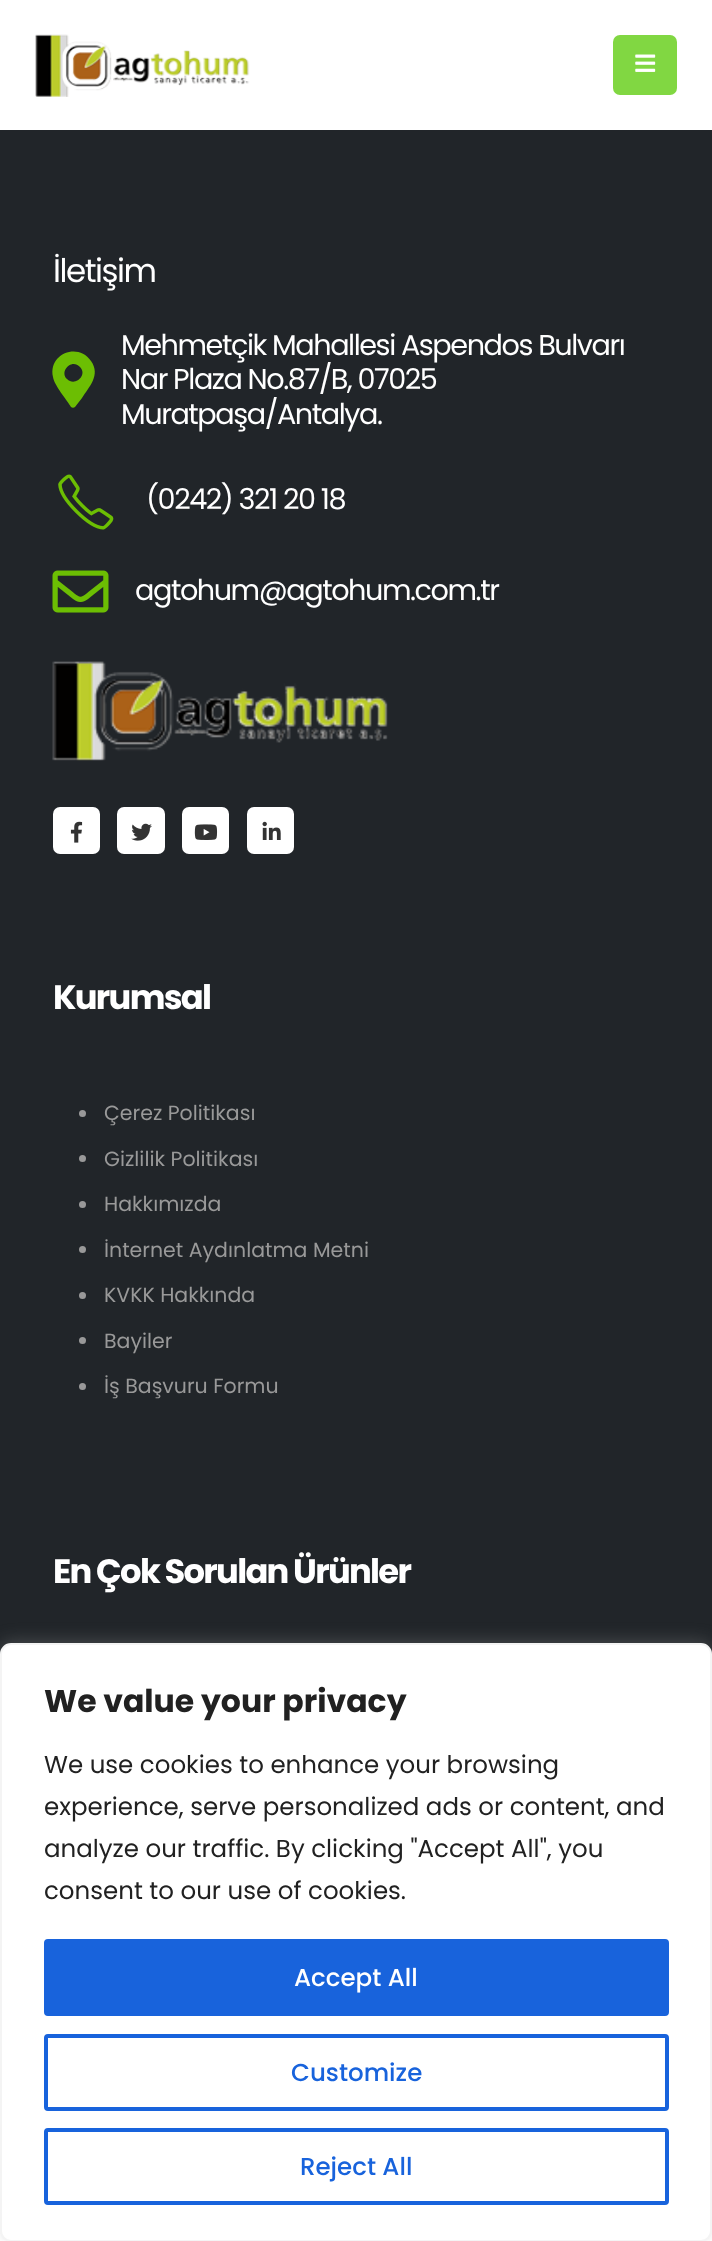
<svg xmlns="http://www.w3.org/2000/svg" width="712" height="2241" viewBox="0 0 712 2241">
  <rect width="100%" height="100%" fill="#fff"/>
  <image x="35" y="34" width="215" height="63" href="img/1.png"/>
  <rect x="613" y="35" width="64" height="60" rx="7" fill="#81d742"/>
  <image x="635" y="54" width="21" height="18" href="img/2.png"/>
  <path d="M0 130h712v1524H0z" fill="#212529"/>
  <path d="M71 407C67 400 54 385 53 377C48 354 78 342 91 361C101 375 89 387 82 398L75 407C74 408 72 408 71 407ZM67 379C75 387 88 375 80 367C72 358 59 371 67 379Z" fill="#6cbe03"/>
  <image x="58" y="474" width="56" height="56" href="img/3.png"/>
  <image x="52" y="570" width="57" height="43" href="img/4.png"/>
  <image x="52" y="661" width="336" height="100" href="img/5.png"/>
  <rect x="53" y="807" width="47" height="47" rx="7" fill="#fff"/>
  <image x="70" y="821" width="13" height="22" href="img/6.png"/>
  <rect x="117" y="807" width="48" height="47" rx="7" fill="#fff"/>
  <image x="131" y="823" width="21" height="18" href="img/7.png"/>
  <rect x="182" y="807" width="47" height="47" rx="7" fill="#fff"/>
  <image x="194" y="824" width="24" height="16" href="img/8.png"/>
  <rect x="247" y="807" width="47" height="47" rx="7" fill="#fff"/>
  <image x="262" y="821" width="19" height="19" href="img/9.png"/>
  <circle cx="82.5" cy="1113.5" r="3.5" fill="#999"/>
  <circle cx="82.5" cy="1158.5" r="3.5" fill="#999"/>
  <circle cx="82.5" cy="1204.5" r="3.5" fill="#999"/>
  <circle cx="82.5" cy="1249.5" r="3.5" fill="#999"/>
  <circle cx="82.5" cy="1295.5" r="3.5" fill="#999"/>
  <circle cx="82.5" cy="1340.5" r="3.5" fill="#999"/>
  <circle cx="82.5" cy="1386.5" r="3.5" fill="#999"/>
  <rect y="1642" width="712" height="598" rx="11" fill="#acabab4d" filter="blur(9px)"/>
  <rect x="1" y="1644" width="710" height="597" rx="10" fill="#fff" stroke="#f4f4f4" stroke-width="2"/>
  <rect x="46" y="1941" width="621" height="73" rx="2" fill="#1863dc" stroke="#1863dc" stroke-width="4"/>
  <rect x="46" y="2036" width="621" height="73" rx="2" fill="none" stroke="#1863dc" stroke-width="4"/>
  <rect x="46" y="2130" width="621" height="73" rx="2" fill="none" stroke="#1863dc" stroke-width="4"/>
  <text x="53" y="282" font-family="Poppins" font-size="32.5" letter-spacing="-1.5" fill="#fff">İletişim</text>
  <g font-family="Poppins" font-size="28.7" letter-spacing="-1.45" fill="#fff">
    <text x="121" y="355">Mehmetçik Mahallesi Aspendos Bulvarı</text>
    <text x="121" y="389">Nar Plaza No.87/B, 07025</text>
    <text x="121" y="424">Muratpaşa/Antalya.</text>
    <text x="146" y="509">(0242) 321 20 18</text>
    <text x="135" y="600">agtohum@agtohum.com.tr</text>
  </g>
  <text x="53" y="1009" font-family="Poppins" font-size="33.75" font-weight="bold" letter-spacing="-1.7" fill="#fff">Kurumsal</text>
  <g font-family="Poppins" font-size="20.5" fill="#999">
    <text x="104" y="1120">Çerez Politikası</text>
    <text x="104" y="1166">Gizlilik Politikası</text>
    <text x="104" y="1211">Hakkımızda</text>
    <text x="104" y="1257">İnternet Aydınlatma Metni</text>
    <text x="104" y="1302">KVKK Hakkında</text>
    <text x="104" y="1348">Bayiler</text>
    <text x="104" y="1393">İş Başvuru Formu</text>
  </g>
  <text x="53" y="1583" font-family="Poppins" font-size="33.75" font-weight="bold" letter-spacing="-1.7" fill="#fff">En Çok Sorulan Ürünler</text>
  <text x="44" y="1712" font-family="Poppins" font-size="31.5" font-weight="bold" fill="#212121">We value your privacy</text>
  <g font-family="Poppins" font-size="24.5" fill="#212121">
    <text x="44" y="1773">We use cookies to enhance your browsing</text>
    <text x="44" y="1815">experience, serve personalized ads or content, and</text>
    <text x="44" y="1857">analyze our traffic. By clicking "Accept All", you</text>
    <text x="44" y="1899">consent to our use of cookies.</text>
  </g>
  <text x="294" y="1986" font-family="Poppins" font-size="24.5" font-weight="500" fill="#fff">Accept All</text>
  <g font-family="Poppins" font-size="24.5" font-weight="500" fill="#1863dc">
    <text x="291" y="2081">Customize</text>
    <text x="300" y="2175">Reject All</text>
  </g>
</svg>
